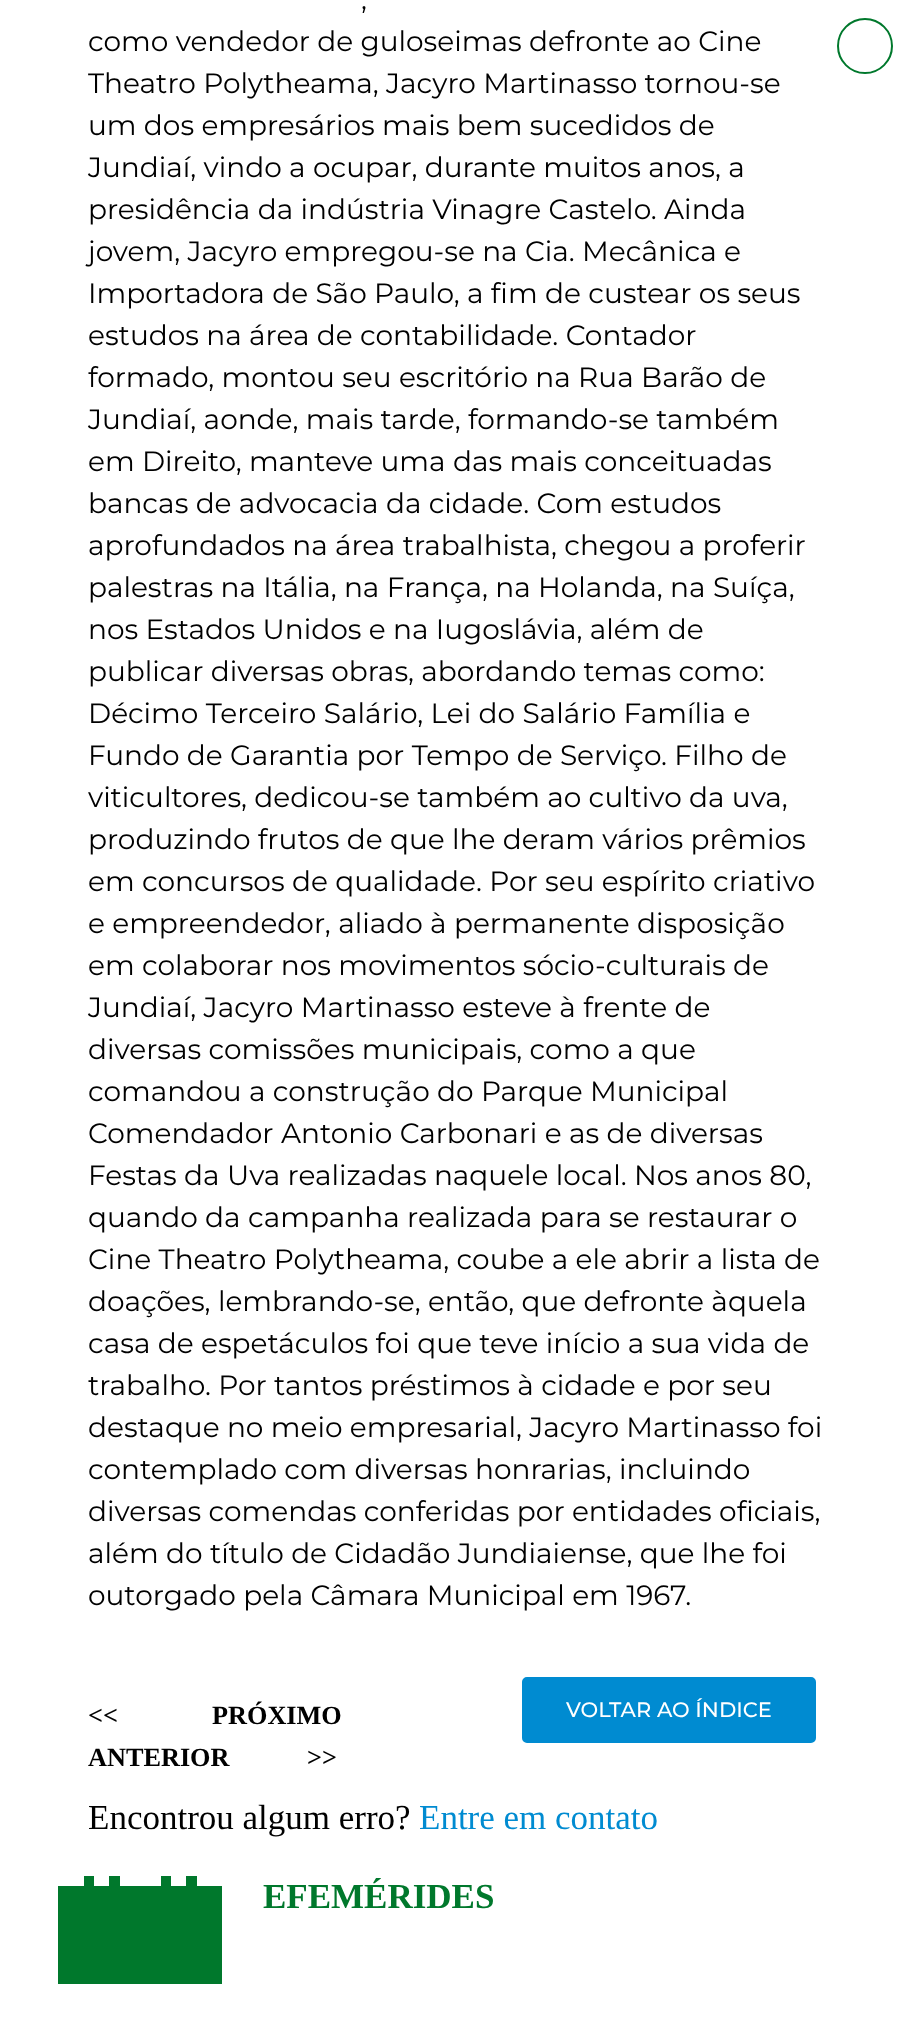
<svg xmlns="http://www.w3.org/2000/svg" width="910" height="2024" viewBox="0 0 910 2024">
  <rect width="100%" height="100%" fill="#fff"/>
  <rect x="523" y="1678" width="292" height="64" rx="4" fill="#008bd1" stroke="#008bd1" stroke-width="2"/>
  <path d="M84 1876h10v10H84z" fill="#00782c"/>
  <path d="M109 1876h11v10H109z" fill="#00782c"/>
  <path d="M161 1876h10v10H161z" fill="#00782c"/>
  <path d="M186 1876h11v10H186z" fill="#00782c"/>
  <path d="M58 1886h164v98H58z" fill="#00782c"/>
  <circle cx="865" cy="46" r="27" fill="none" stroke="#00782c" stroke-width="2"/>
  <g font-family="Montserrat" font-size="28" fill="#000">
    <text x="361" y="9">,</text>
    <text x="88" y="51">como vendedor de guloseimas defronte ao Cine</text>
    <text x="88" y="93">Theatro Polytheama, Jacyro Martinasso tornou-se</text>
    <text x="88" y="135">um dos empresários mais bem sucedidos de</text>
    <text x="88" y="177">Jundiaí, vindo a ocupar, durante muitos anos, a</text>
    <text x="88" y="219">presidência da indústria Vinagre Castelo. Ainda</text>
    <text x="88" y="261">jovem, Jacyro empregou-se na Cia. Mecânica e</text>
    <text x="88" y="303">Importadora de São Paulo, a fim de custear os seus</text>
    <text x="88" y="345">estudos na área de contabilidade. Contador</text>
    <text x="88" y="387">formado, montou seu escritório na Rua Barão de</text>
    <text x="88" y="429">Jundiaí, aonde, mais tarde, formando-se também</text>
    <text x="88" y="471">em Direito, manteve uma das mais conceituadas</text>
    <text x="88" y="513">bancas de advocacia da cidade. Com estudos</text>
    <text x="88" y="555">aprofundados na área trabalhista, chegou a proferir</text>
    <text x="88" y="597">palestras na Itália, na França, na Holanda, na Suíça,</text>
    <text x="88" y="639">nos Estados Unidos e na Iugoslávia, além de</text>
    <text x="88" y="681">publicar diversas obras, abordando temas como:</text>
    <text x="88" y="723">Décimo Terceiro Salário, Lei do Salário Família e</text>
    <text x="88" y="765">Fundo de Garantia por Tempo de Serviço. Filho de</text>
    <text x="88" y="807">viticultores, dedicou-se também ao cultivo da uva,</text>
    <text x="88" y="849">produzindo frutos de que lhe deram vários prêmios</text>
    <text x="88" y="891">em concursos de qualidade. Por seu espírito criativo</text>
    <text x="88" y="933">e empreendedor, aliado à permanente disposição</text>
    <text x="88" y="975">em colaborar nos movimentos sócio-culturais de</text>
    <text x="88" y="1017">Jundiaí, Jacyro Martinasso esteve à frente de</text>
    <text x="88" y="1059">diversas comissões municipais, como a que</text>
    <text x="88" y="1101">comandou a construção do Parque Municipal</text>
    <text x="88" y="1143">Comendador Antonio Carbonari e as de diversas</text>
    <text x="88" y="1185">Festas da Uva realizadas naquele local. Nos anos 80,</text>
    <text x="88" y="1227">quando da campanha realizada para se restaurar o</text>
    <text x="88" y="1269">Cine Theatro Polytheama, coube a ele abrir a lista de</text>
    <text x="88" y="1311">doações, lembrando-se, então, que defronte àquela</text>
    <text x="88" y="1353">casa de espetáculos foi que teve início a sua vida de</text>
    <text x="88" y="1395">trabalho. Por tantos préstimos à cidade e por seu</text>
    <text x="88" y="1437">destaque no meio empresarial, Jacyro Martinasso foi</text>
    <text x="88" y="1479">contemplado com diversas honrarias, incluindo</text>
    <text x="88" y="1521">diversas comendas conferidas por entidades oficiais,</text>
    <text x="88" y="1563">além do título de Cidadão Jundiaiense, que lhe foi</text>
    <text x="88" y="1605">outorgado pela Câmara Municipal em 1967.</text>
  </g>
  <g font-family="Liberation Serif" font-size="26.25" font-weight="bold" fill="#000">
    <text x="88" y="1724">&lt;&lt;</text>
    <text x="88" y="1766">ANTERIOR</text>
    <text x="212" y="1724">PRÓXIMO</text>
    <text x="307" y="1766">&gt;&gt;</text>
  </g>
  <text x="566" y="1717" font-family="Montserrat" font-size="21" font-weight="500" fill="#fff">VOLTAR AO ÍNDICE</text>
  <text x="88" y="1829" font-family="Liberation Serif" font-size="35" fill="#000">Encontrou algum erro?</text>
  <text x="419" y="1829" font-family="Liberation Serif" font-size="35" fill="#008bd1">Entre em contato</text>
  <text x="263" y="1908" font-family="Liberation Serif" font-size="35" font-weight="bold" fill="#00782c">EFEMÉRIDES</text>
</svg>
